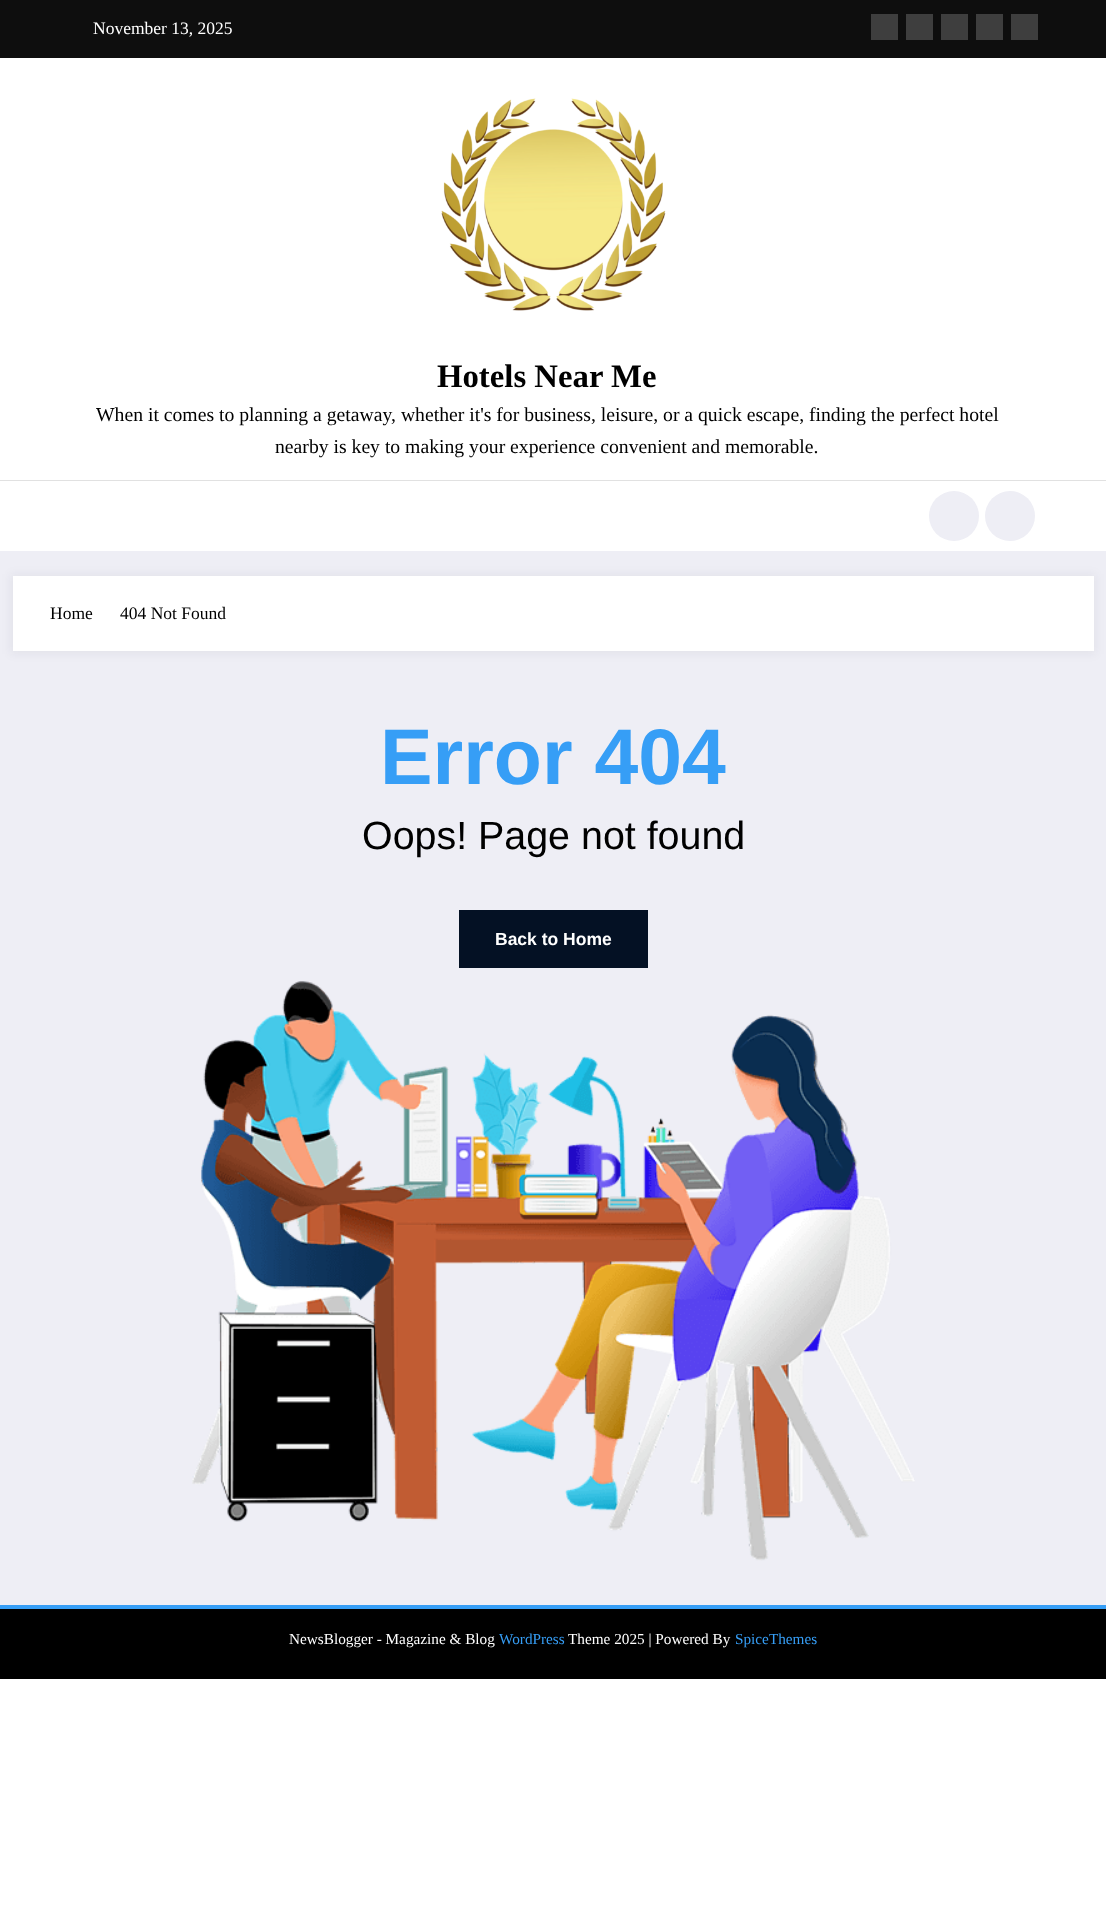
<svg xmlns="http://www.w3.org/2000/svg" width="1106" height="1907" viewBox="0 0 1106 1907">
  <rect width="100%" height="100%" fill="#fff"/>
  <path d="M0 551h1106v1054H0z" fill="#eeeef5"/>
  <path d="M0 0h1106v58H0z" fill="#0e0e0e"/>
  <path d="M871 14h27v26H871z" fill="#3e3e3e"/>
  <path d="M906 14h27v26H906z" fill="#3e3e3e"/>
  <path d="M941 14h27v26H941z" fill="#3e3e3e"/>
  <path d="M976 14h27v26H976z" fill="#3e3e3e"/>
  <path d="M1011 14h27v26H1011z" fill="#3e3e3e"/>
  <image x="441" y="98" width="225" height="213" href="img/1.png"/>
  <path d="M0 480h1106v1H0z" fill="#e1e1e1"/>
  <circle cx="954" cy="516" r="25" fill="#eeeef5"/>
  <circle cx="1010" cy="516" r="25" fill="#eeeef5"/>
  <path d="M10 574h1086v80H10z" fill="#1717230d" filter="blur(5px)"/>
  <path d="M13 576h1081v75H13z" fill="#fff"/>
  <path d="M459 910h189v58H459z" fill="#041124"/>
  <image x="192" y="981" width="723" height="580" href="img/2.png"/>
  <path d="M0 1605h1106v4H0z" fill="#369ef6"/>
  <path d="M0 1609h1106v70H0z" fill="#000"/>
  <text x="93" y="34" font-family="Liberation Serif" font-size="17.5" fill="#fff">November 13, 2025</text>
  <text x="437" y="387" font-family="Liberation Serif" font-size="32.75" font-weight="bold" fill="#000">Hotels Near Me</text>
  <g font-family="Liberation Serif" font-size="19.7" fill="#000">
    <text x="96" y="421">When it comes to planning a getaway, whether it's for business, leisure, or a quick escape, finding the perfect hotel</text>
    <text x="275" y="453">nearby is key to making your experience convenient and memorable.</text>
  </g>
  <g font-family="Liberation Serif" font-size="17.5" fill="#000">
    <text x="50" y="619">Home</text>
    <text x="120" y="619">404 Not Found</text>
  </g>
  <text x="380" y="784" font-family="Liberation Sans" font-size="78.75" font-weight="bold" fill="#369ef6">Error 404</text>
  <text x="362" y="849" font-family="Liberation Sans" font-size="39.4" fill="#000">Oops! Page not found</text>
  <text x="495" y="945" font-family="Liberation Sans" font-size="17.5" font-weight="bold" fill="#fff">Back to Home</text>
  <text x="289" y="1644" font-family="Liberation Serif" font-size="15.25" fill="#fff">NewsBlogger - Magazine &amp; Blog</text>
  <text x="499" y="1644" font-family="Liberation Serif" font-size="15.25" fill="#369ef6">WordPress</text>
  <text x="568" y="1644" font-family="Liberation Serif" font-size="15.25" fill="#fff">Theme 2025 | Powered By</text>
  <text x="735" y="1644" font-family="Liberation Serif" font-size="15.25" fill="#369ef6">SpiceThemes</text>
</svg>
